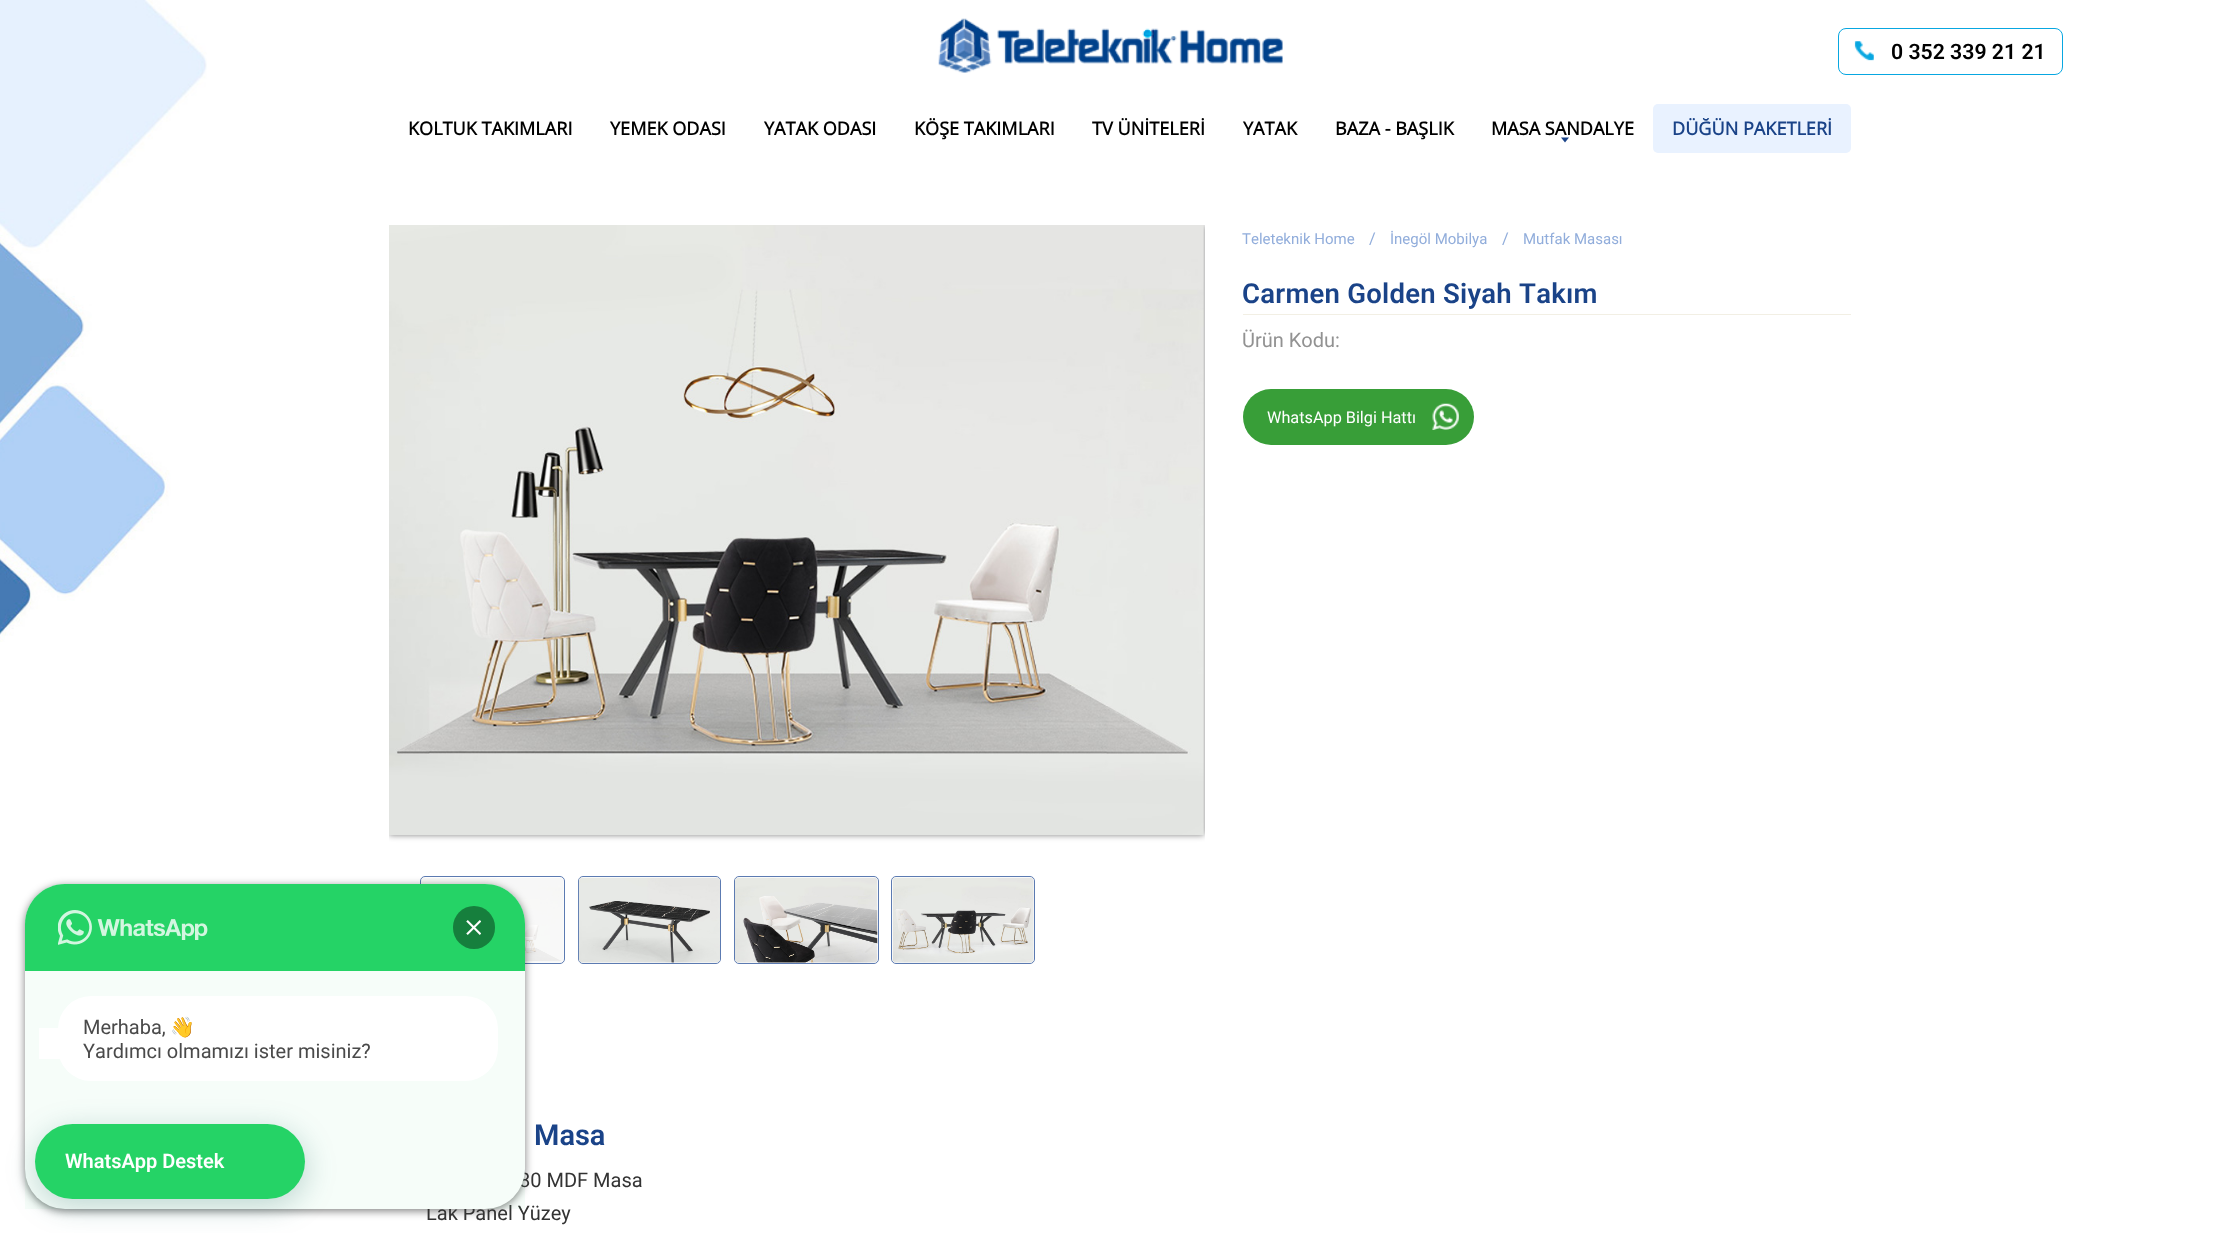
<svg xmlns="http://www.w3.org/2000/svg" width="2239" height="1233" viewBox="0 0 2239 1233">
  <style>*{font-kerning:none!important;font-variant-ligatures:none!important}</style>
  <defs>
    <clipPath id="clip1"><path d="M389 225h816v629H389z"/></clipPath>
  </defs>
  <rect width="100%" height="100%" fill="#fff"/>
  <image x="0" y="0" width="207" height="642" href="img/1.png"/>
  <image x="938" y="18" width="345" height="55" href="img/2.png"/>
  <rect x="1838.5" y="28.5" width="224" height="46" rx="7.5" fill="none" stroke="#08a7e1"/>
  <image x="1854" y="41" width="20" height="20" href="img/3.png"/>
  <path d="M1561 137.5H1569L1565 142.5Z" fill="#1a4388"/>
  <rect x="1653" y="104" width="198" height="49" rx="5" fill="#e9f2ff"/>
  <rect x="420.5" y="876.5" width="144" height="87" rx="4.5" fill="none" stroke="#5c7bb2"/>
  <image x="421" y="878" width="143" height="85" href="img/7.png"/>
  <rect x="25" y="886" width="500" height="325" rx="40" fill="#00000080" filter="blur(4px)"/>
  <g clip-path="url(#clip1)">
    <path d="M389 225h815v610H389z" fill="#00000080" filter="blur(3px)"/>
  </g>
  <image x="389" y="225" width="815" height="610" href="img/6.png"/>
  <rect x="578.5" y="876.5" width="142" height="87" rx="4.5" fill="none" stroke="#5c7bb2"/>
  <image x="578" y="877" width="142" height="86" href="img/8.png"/>
  <rect x="734.5" y="876.5" width="144" height="87" rx="4.5" fill="none" stroke="#5c7bb2"/>
  <image x="735" y="877" width="143" height="86" href="img/9.png"/>
  <rect x="891.5" y="876.5" width="143" height="87" rx="4.5" fill="none" stroke="#5c7bb2"/>
  <image x="892" y="877" width="142" height="86" href="img/10.png"/>
  <path d="M1243 314h608v1H1243z" fill="#f2efe4"/>
  <rect x="1243" y="389" width="231" height="56" rx="28" fill="#389e38"/>
  <image x="1432" y="403" width="27" height="27" href="img/11.png"/>
  <text x="1891" y="59" font-family="Roboto" font-size="21.25" font-weight="600" fill="#000">0 352 339 21 21</text>
  <g font-family="Open Sans" font-size="18.1" font-weight="bold" fill="#000">
    <text x="408" y="135">KOLTUK TAKIMLARI</text>
    <text x="610" y="135">YEMEK ODASI</text>
    <text x="764" y="135">YATAK ODASI</text>
    <text x="914" y="135">KÖŞE TAKIMLARI</text>
    <text x="1092" y="135">TV ÜNİTELERİ</text>
    <text x="1243" y="135">YATAK</text>
    <text x="1335" y="135">BAZA - BAŞLIK</text>
    <text x="1491" y="135">MASA SANDALYE</text>
  </g>
  <text x="1672" y="135" font-family="Open Sans" font-size="18.1" font-weight="bold" fill="#1a4388">DÜĞÜN PAKETLERİ</text>
  <text x="1242" y="244" font-family="Roboto" font-size="15" fill="#91addb">Teleteknik Home</text>
  <text x="1369" y="244" font-family="Roboto" font-size="16.25" fill="#91addb">/</text>
  <text x="1390" y="244" font-family="Roboto" font-size="15" fill="#91addb">İnegöl Mobilya</text>
  <text x="1502" y="244" font-family="Roboto" font-size="16.25" fill="#91addb">/</text>
  <text x="1523" y="244" font-family="Roboto" font-size="15" fill="#91addb">Mutfak Masası</text>
  <text x="1242" y="303" font-family="Roboto" font-size="27.5" font-weight="600" letter-spacing="0.25" fill="#1a4388">Carmen Golden Siyah Takım</text>
  <text x="1242" y="347" font-family="Roboto" font-size="20" fill="#929292">Ürün Kodu:</text>
  <text x="1267" y="423" font-family="Roboto" font-size="16.25" fill="#fff">WhatsApp Bilgi Hattı</text>
  <text x="534" y="1145" font-family="Roboto" font-size="29" font-weight="600" fill="#1a4388">Masa</text>
  <g font-family="Roboto" font-size="20" fill="#333">
    <text x="519" y="1187">80 MDF Masa</text>
    <text x="426" y="1220">Lak Panel Yüzey</text>
  </g>
  <rect x="25" y="884" width="500" height="325" rx="40" fill="#fff"/>
  <path d="M25 971h500v238H25z" fill="#25d3660a"/>
  <rect x="36" y="1131" width="270" height="75" rx="37.5" fill="#075e543d" filter="blur(15px)"/>
  <rect x="35" y="1124" width="270" height="75" rx="37.5" fill="#25d366"/>
  <text x="65" y="1168" font-family="Roboto" font-size="20" font-weight="600" fill="#fff">WhatsApp Destek</text>
  <rect x="58" y="996" width="440" height="85" rx="33" fill="#fff"/>
  <path d="M39 1028h21v31H39z" fill="#fff"/>
  <text x="83" y="1058" font-family="Roboto" font-size="20" fill="#4a4a4a">Yardımcı olmamızı ister misiniz?</text>
  <text x="170" y="1034" font-family="Noto Color Emoji" font-size="20" fill="#4a4a4a">👋</text>
  <text x="83" y="1034" font-family="Roboto" font-size="20" fill="#4a4a4a">Merhaba,</text>
  <path d="M65 884H485C507 884 525 902 525 924V971H25V924C25 902 43 884 65 884Z" fill="#25d366"/>
  <rect x="453" y="906" width="42" height="43" rx="21" fill="#167f3d"/>
  <image x="466" y="920" width="15" height="15" href="img/5.png"/>
  <image x="58" y="910" width="150" height="35" href="img/4.png"/>
</svg>
